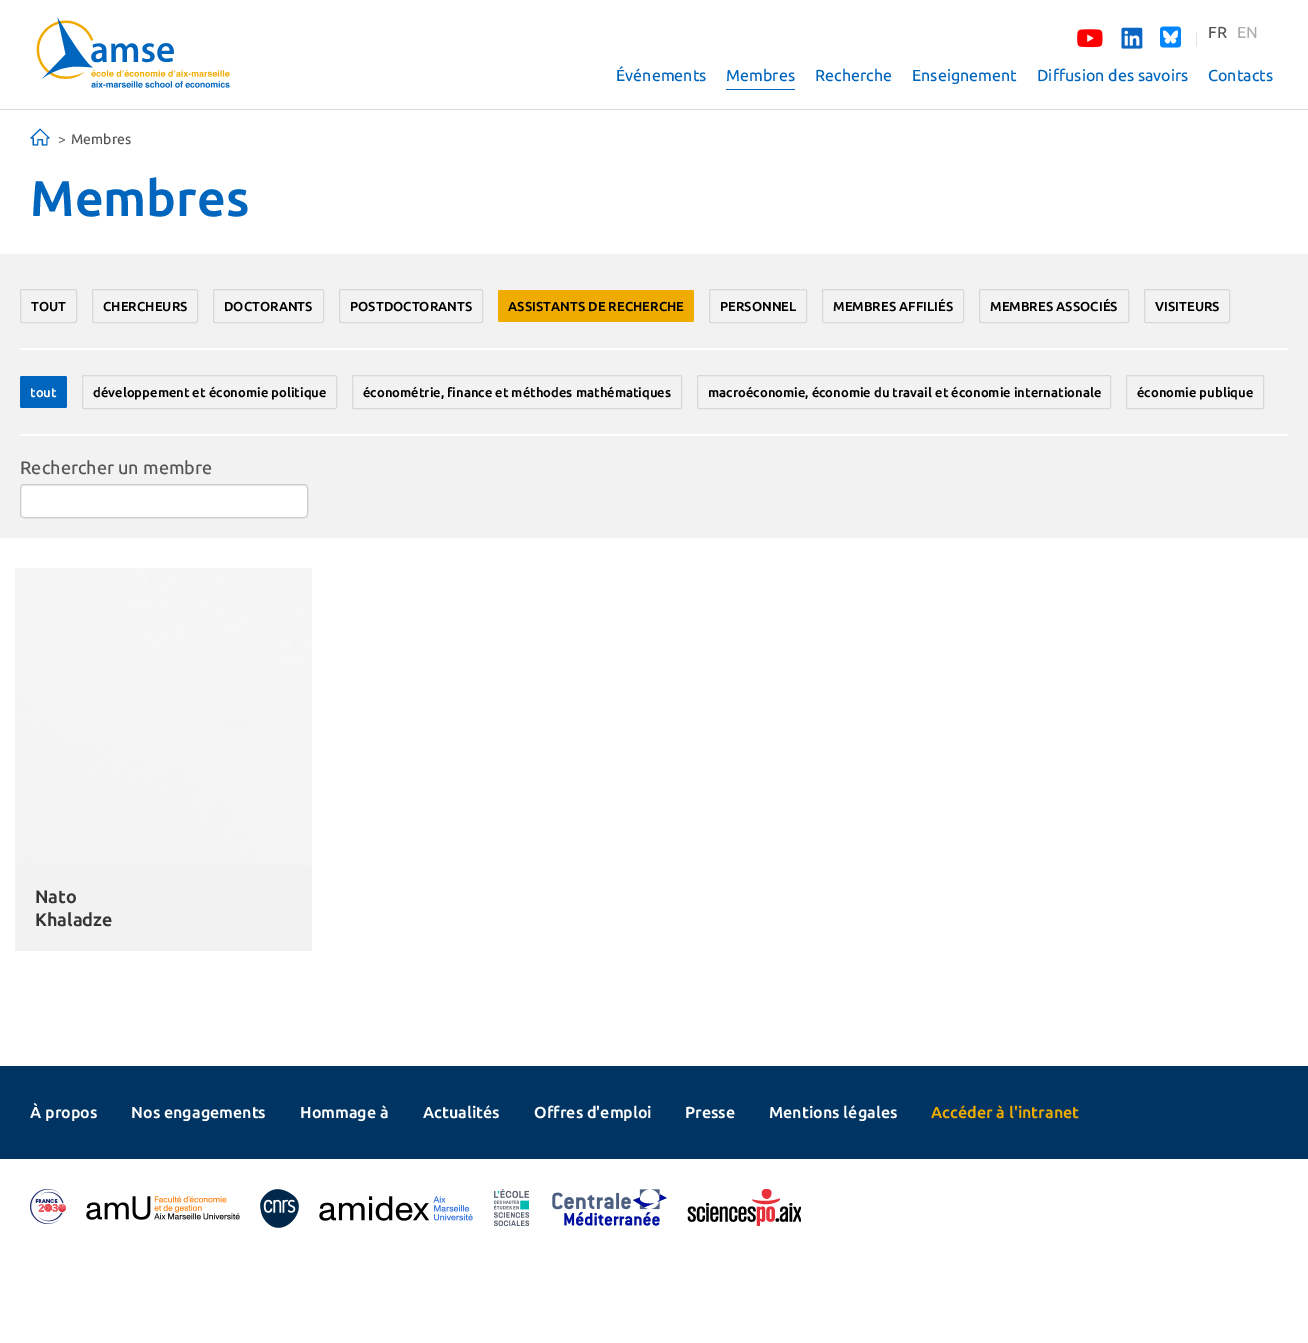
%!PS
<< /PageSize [1308 1343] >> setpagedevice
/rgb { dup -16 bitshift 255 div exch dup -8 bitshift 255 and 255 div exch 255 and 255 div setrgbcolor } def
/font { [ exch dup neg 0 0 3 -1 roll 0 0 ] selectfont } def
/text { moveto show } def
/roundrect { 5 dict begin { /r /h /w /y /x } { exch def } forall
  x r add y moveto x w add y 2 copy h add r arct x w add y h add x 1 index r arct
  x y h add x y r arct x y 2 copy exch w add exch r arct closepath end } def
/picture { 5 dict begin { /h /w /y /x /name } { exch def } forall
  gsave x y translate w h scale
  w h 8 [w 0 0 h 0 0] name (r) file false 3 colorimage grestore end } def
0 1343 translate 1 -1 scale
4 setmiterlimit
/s1 { /SourceSansPro-Regular 14 font 16#DADADA rgb } def
/s2 { /Ubuntu-Medium 16 font 16#545454 rgb } def
/s3 { /Ubuntu-Medium 16 font 16#ABABAB rgb } def
/s4 { /Ubuntu-Medium 16 font 16#0065BD rgb } def
/s5 { /Ubuntu-Regular 14 font 16#545454 rgb } def
/s6 { /Ubuntu-Medium 14 font 16#545454 rgb } def
/s7 { /Ubuntu-Bold 50 font 16#0065BD rgb } def
/s8 { /Ubuntu-Bold 13 font 16#000000 rgb } def
/s9 { /Ubuntu-Bold 13 font 16#FFFFFF rgb } def
/s10 { /Ubuntu-Medium 18 font 16#545454 rgb } def
/s11 { /Ubuntu-Bold 18 font 16#353535 rgb } def
/s12 { /Ubuntu-Bold 16 font 16#FFFFFF rgb } def
/s13 { /Ubuntu-Bold 16 font 16#F0AB00 rgb } def
16#FFFFFF rgb
0 0 1308 1343 rectfill
16#D8D8D8 rgb
0 109 1308 1 rectfill
(pic1.raw) 36 17 194 71 picture
(pic2.raw) 1077 29 26 19 picture
(pic3.raw) 1121 27 22 22 picture
(pic4.raw) 1160 26 21 22 picture
s1
(|) 1195 43 text
s2
(FR) 1208 38 text
s3
(EN) 1237 38 text
s4
(Événements) 616 81 text
726 89 69 1 rectfill
(Membres) 726 81 text
(Recherche) 815 81 text
(Enseignement) 912 81 text
(Diffusion des savoirs) 1037 81 text
(Contacts) 1208 81 text
(pic5.raw) 30 128 20 18 picture
s5
(>) 58 144 text
s6
(Membres) 71 144 text
s7
(Membres) 30 216 text
16#F2F2F2 rgb
0 254 1308 284 rectfill
16#D8D8D8 rgb
20.5 289.5 56 33 1.5 roundrect stroke
s8
(TOUT) 31 311 text
16#D8D8D8 rgb
92.5 289.5 105 33 1.5 roundrect stroke
s8
(CHERCHEURS) 103 311 text
16#D8D8D8 rgb
213.5 289.5 110 33 1.5 roundrect stroke
s8
(DOCTORANTS) 224 311 text
16#D8D8D8 rgb
339.5 289.5 143 33 1.5 roundrect stroke
s8
(POSTDOCTORANTS) 350 311 text
16#F0AB00 rgb
498 290 196 32 2 roundrect fill
s8
(ASSISTANTS DE RECHERCHE) 508 311 text
16#D8D8D8 rgb
709.5 289.5 97 33 1.5 roundrect stroke
s8
(PERSONNEL) 720 311 text
16#D8D8D8 rgb
822.5 289.5 141 33 1.5 roundrect stroke
s8
(MEMBRES AFFILIÉS) 833 311 text
16#D8D8D8 rgb
979.5 289.5 149 33 1.5 roundrect stroke
s8
(MEMBRES ASSOCIÉS) 990 311 text
16#D8D8D8 rgb
1144.5 289.5 85 33 1.5 roundrect stroke
s8
(VISITEURS) 1155 311 text
16#FFFFFF rgb
20 348 1268 2 rectfill
16#0065BD rgb
20 376 47 32 2 roundrect fill
s9
(tout) 30 397 text
16#D8D8D8 rgb
82.5 375.5 254 33 1.5 roundrect stroke
s8
(développement et économie politique) 93 397 text
16#D8D8D8 rgb
352.5 375.5 329 33 1.5 roundrect stroke
s8
(économétrie, finance et méthodes mathématiques) 363 397 text
16#D8D8D8 rgb
697.5 375.5 413 33 1.5 roundrect stroke
s8
(macroéconomie, économie du travail et économie internationale) 708 397 text
16#D8D8D8 rgb
1126.5 375.5 137 33 1.5 roundrect stroke
s8
(économie publique) 1137 397 text
16#FFFFFF rgb
20 434 1268 2 rectfill
s10
(Rechercher un membre) 20 474 text
16#FFFFFF rgb
20 484 288 34 4 roundrect fill
16#ECECEC rgb
24 486 moveto 304 486 lineto 306 486 307 487 307 489 curveto 307 487 306 485 304 485 curveto 24 485 lineto 22 485 21 487 21 489 curveto 21 487 22 486 24 486 curveto closepath fill
16#CCCCCC rgb
20.5 484.5 287 33 3.5 roundrect stroke
(pic6.raw) 15 568 297 297 picture
16#F2F2F2 rgb
15 865 297 86 rectfill
s11
(Nato) 35 903 text
(Khaladze) 35 926 text
16#003563 rgb
0 1066 1308 93 rectfill
s12
(À propos) 30 1118 text
(Nos engagements) 131 1118 text
(Hommage à) 300 1118 text
(Actualités) 423 1118 text
(Offres d'emploi) 534 1118 text
(Presse) 685 1118 text
(Mentions légales) 769 1118 text
s13
(Accéder à l'intranet) 931 1118 text
(pic7.raw) 30 1189 36 35 picture
(pic8.raw) 86 1196 154 24 picture
(pic9.raw) 260 1189 39 39 picture
(pic10.raw) 319 1196 154 25 picture
(pic11.raw) 494 1189 35 37 picture
(pic12.raw) 552 1189 115 37 picture
(pic13.raw) 687 1189 114 37 picture
showpage
